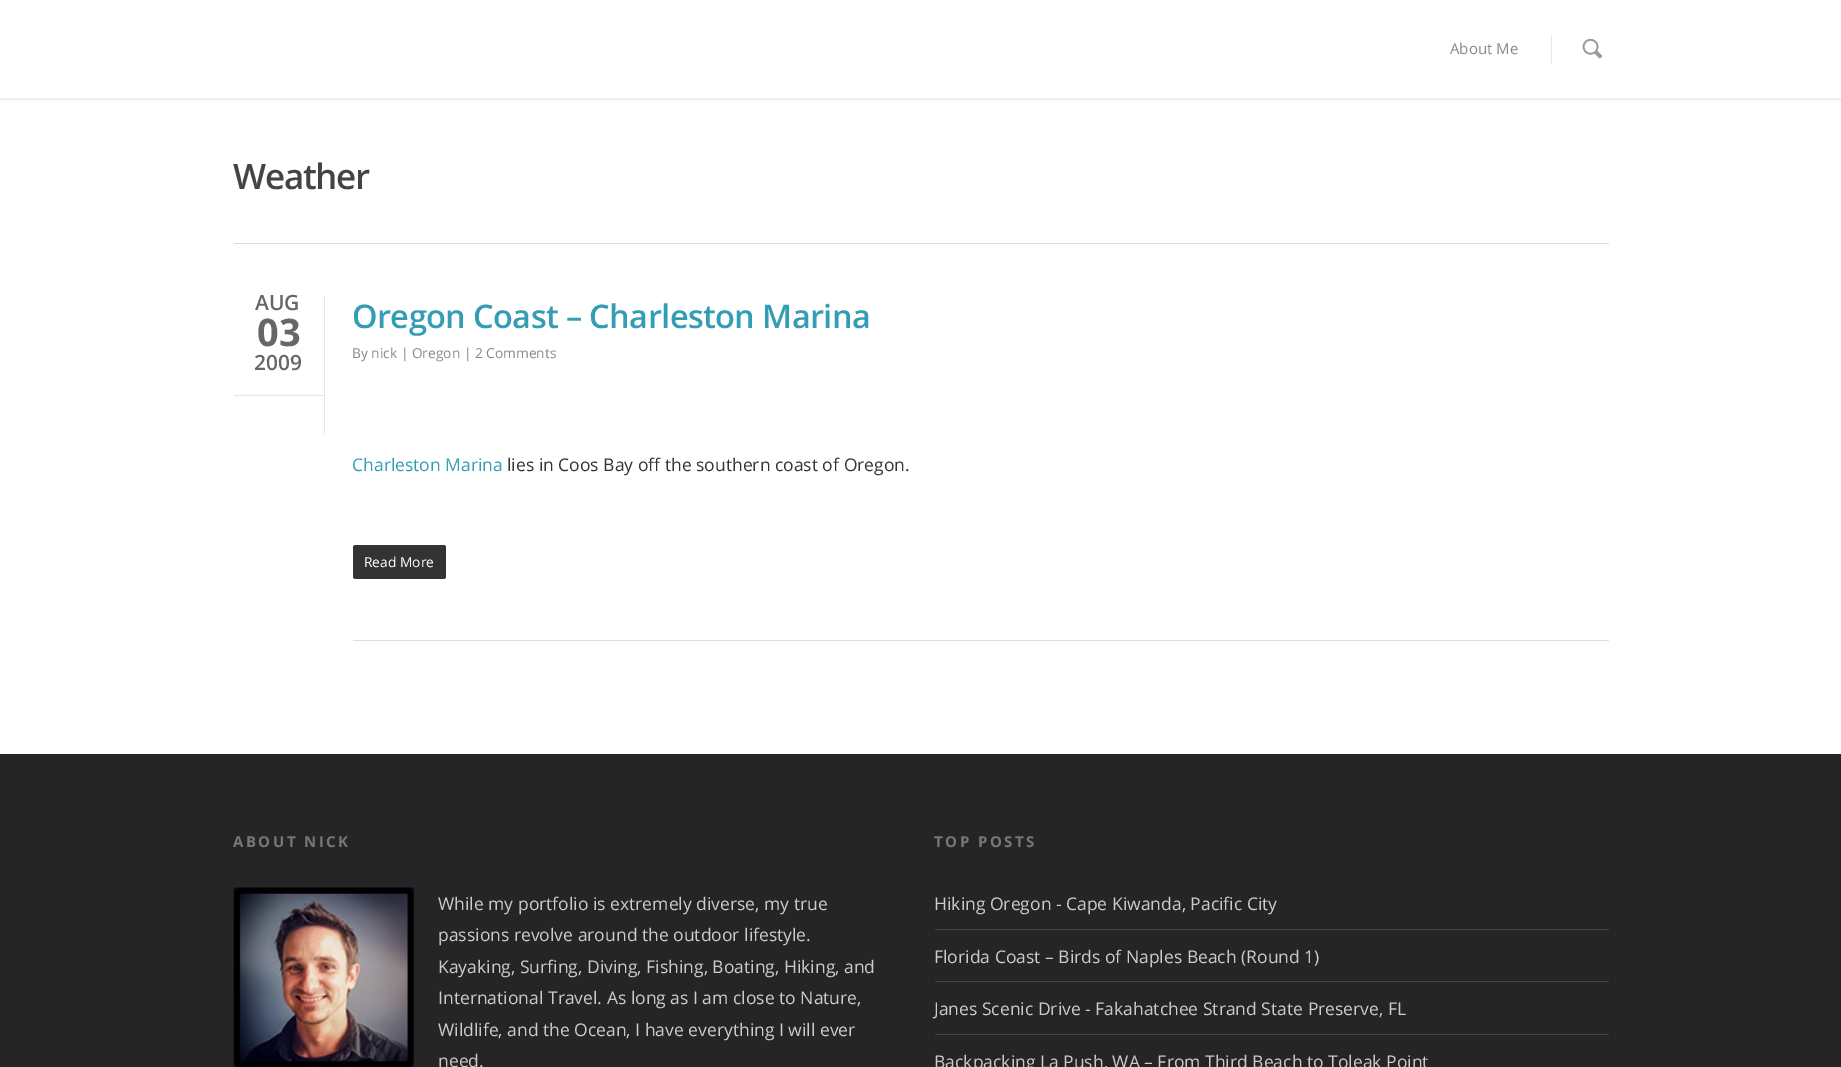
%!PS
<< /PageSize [1841 1067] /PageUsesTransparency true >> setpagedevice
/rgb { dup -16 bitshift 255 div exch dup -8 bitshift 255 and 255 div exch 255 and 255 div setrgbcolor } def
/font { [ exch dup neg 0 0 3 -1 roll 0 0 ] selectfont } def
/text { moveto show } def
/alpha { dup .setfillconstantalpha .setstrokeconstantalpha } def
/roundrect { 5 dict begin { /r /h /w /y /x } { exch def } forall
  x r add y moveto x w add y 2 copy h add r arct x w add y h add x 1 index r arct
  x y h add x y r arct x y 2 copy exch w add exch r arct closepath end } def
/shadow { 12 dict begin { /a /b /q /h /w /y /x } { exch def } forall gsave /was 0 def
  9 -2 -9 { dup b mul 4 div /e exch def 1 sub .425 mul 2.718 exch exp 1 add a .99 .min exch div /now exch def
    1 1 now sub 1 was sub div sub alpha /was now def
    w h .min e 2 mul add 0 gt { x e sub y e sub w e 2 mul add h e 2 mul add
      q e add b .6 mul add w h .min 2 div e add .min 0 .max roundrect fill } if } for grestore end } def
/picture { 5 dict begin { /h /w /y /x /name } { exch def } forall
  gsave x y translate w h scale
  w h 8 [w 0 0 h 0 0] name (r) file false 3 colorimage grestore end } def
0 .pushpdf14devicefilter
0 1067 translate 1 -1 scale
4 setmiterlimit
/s1 { /OpenSans-Regular 15 font 16#888888 rgb } def
/s2 { /OpenSans-SemiBold 21 font 16#676767 rgb } def
/s3 { /OpenSans-Bold 38 font 16#676767 rgb } def
/s4 { /OpenSans-Regular 13.75 font 16#888888 rgb } def
/s5 { /OpenSans-Regular 17.5 font 16#329DB5 rgb } def
/s6 { /OpenSans-Regular 17.5 font 16#333333 rgb } def
/s7 { /OpenSans-Regular 13.75 font 16#FFFFFF rgb } def
/s8 { /OpenSans-Regular 17.5 font 16#CCCCCC rgb } def
16#FFFFFF rgb
0 0 1841 1067 rectfill
16#000000 rgb
0 0 1841 98 0 2 0.22 shadow
16#FFFFFF rgb
0 0 1841 98 rectfill
s1
(About Me) 1450 54 text
16#E7E7E7 rgb
1551 36 1 27 rectfill
(pic1.raw) 1582 38 21 21 picture
16#DDDDDD rgb
234 243 1375 1 rectfill
/OpenSans-SemiBold 35 font
16#444444 rgb
233 189 moveto -1.25 0 (Weather) ashow
16#E6E6E6 rgb
324 296 1 139 rectfill
234 395 90 1 rectfill
s2
(AUG) 255 310 text
s3
(03) 257 346 text
s2
(2009) 254 370 text
16#DDDDDD rgb
353 640 1256 1 rectfill
/OpenSans-SemiBold 32.5 font
16#329DB5 rgb
352 328 moveto -0.6 0 (Oregon Coast – Charleston Marina) ashow
s4
(By nick | Oregon | 2 Comments) 352 358 text
s5
(Charleston Marina) 352 471 text
s6
(lies in Coos Bay off the southern coast of Oregon.) 507 471 text
353 545 93 34 2.5 roundrect fill
s7
(Read More) 364 567 text
16#252525 rgb
0 754 1841 313 rectfill
/OpenSans-Bold 15 font
16#777777 rgb
233 847 moveto 2.5 0 (ABOUT NICK) ashow
(pic2.raw) 233 887 181 180 picture
s8
(While my portfolio is extremely diverse, my true) 438 910 text
(passions revolve around the outdoor lifestyle.) 438 941 text
(Kayaking, Surfing, Diving, Fishing, Boating, Hiking, and) 438 973 text
(International Travel. As long as I am close to Nature,) 438 1004 text
(Wildlife, and the Ocean, I have everything I will ever) 438 1036 text
(need.) 438 1067 text
/OpenSans-Bold 15 font
16#777777 rgb
934 847 moveto 2.5 0 (TOP POSTS) ashow
16#444444 rgb
935 929 674 1 rectfill
s8
(Hiking Oregon - Cape Kiwanda, Pacific City) 934 910 text
16#444444 rgb
935 981 674 1 rectfill
s8
(Florida Coast – Birds of Naples Beach \(Round 1\)) 934 963 text
16#444444 rgb
935 1034 674 1 rectfill
s8
(Janes Scenic Drive - Fakahatchee Strand State Preserve, FL) 934 1015 text
(Backpacking La Push, WA – From Third Beach to Toleak Point) 934 1068 text
.poppdf14devicefilter showpage
